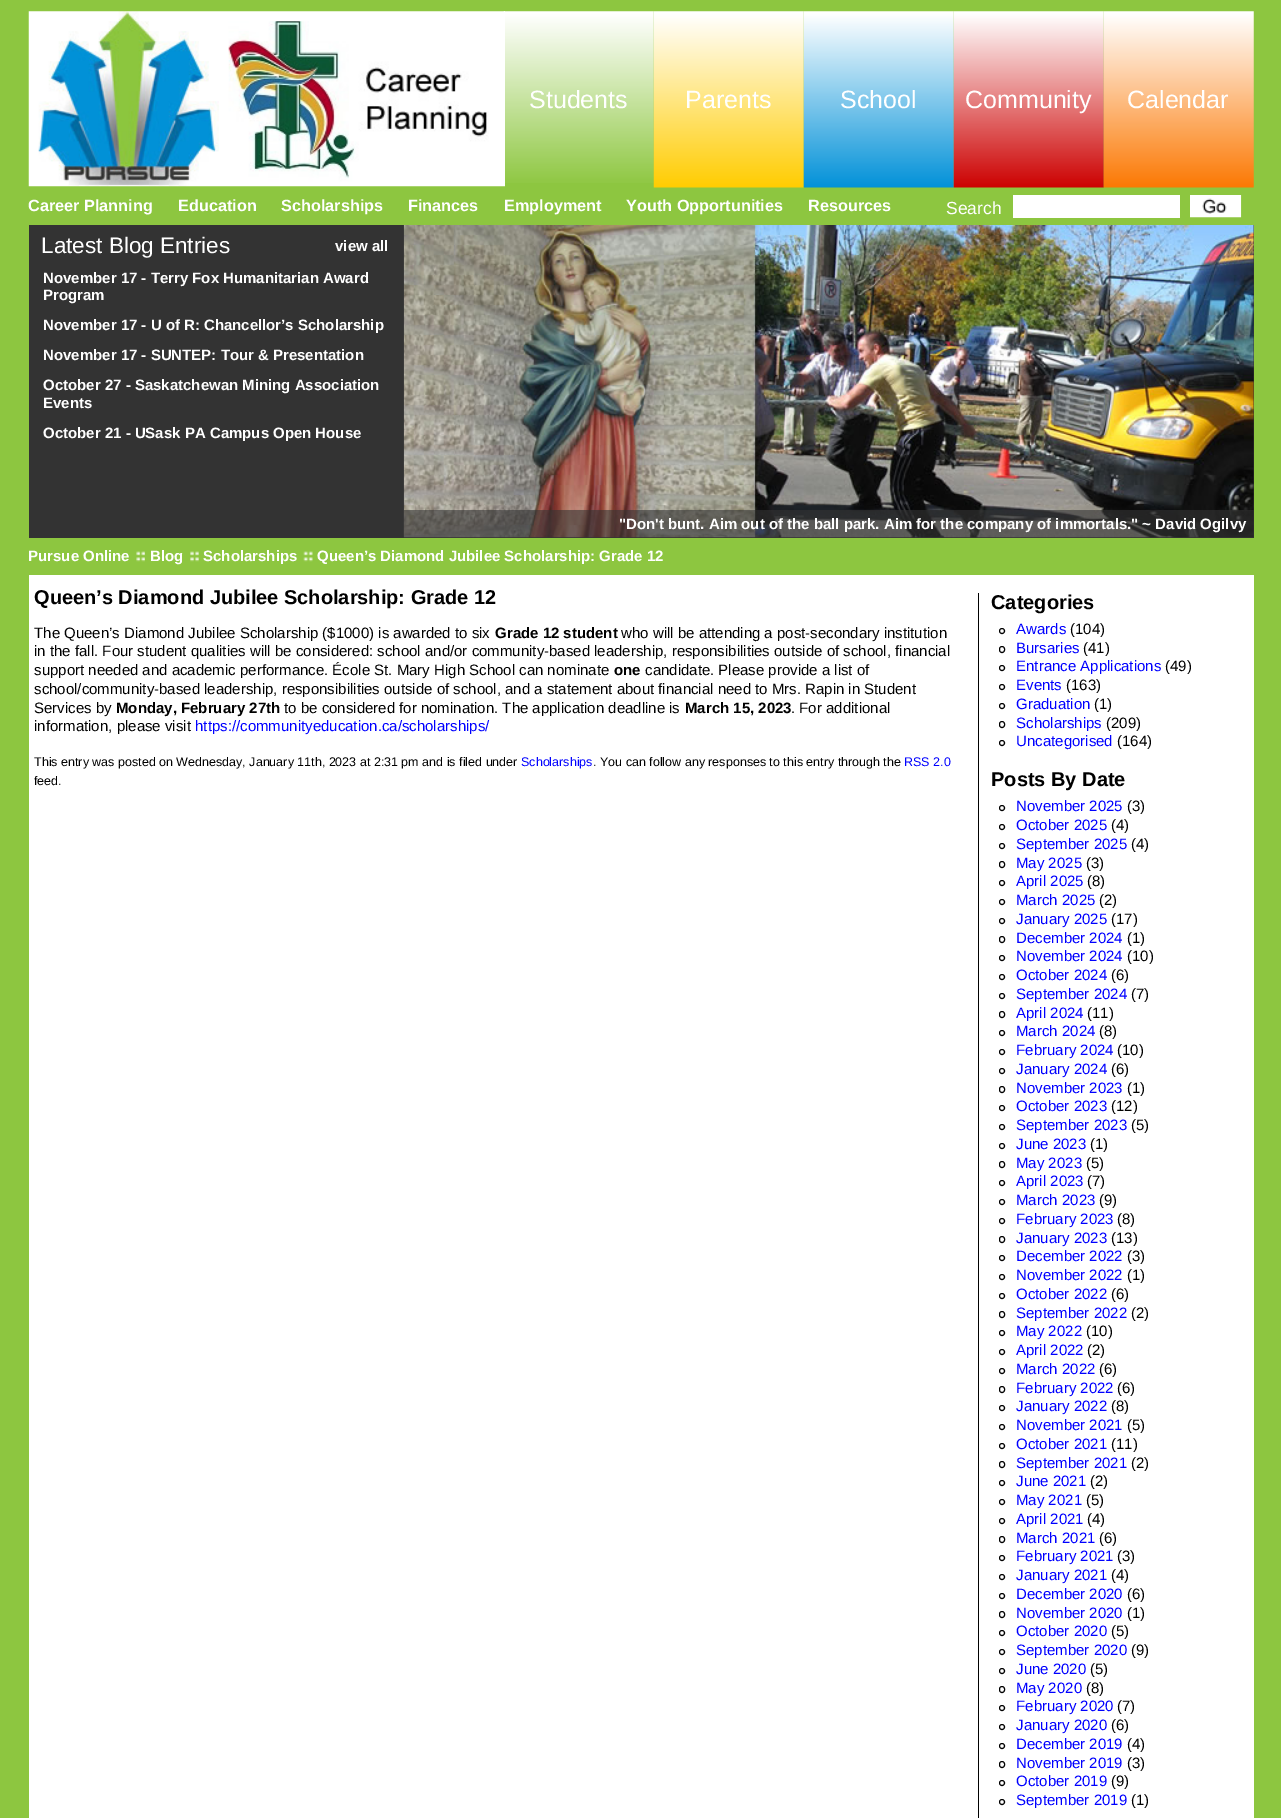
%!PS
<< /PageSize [1281 1818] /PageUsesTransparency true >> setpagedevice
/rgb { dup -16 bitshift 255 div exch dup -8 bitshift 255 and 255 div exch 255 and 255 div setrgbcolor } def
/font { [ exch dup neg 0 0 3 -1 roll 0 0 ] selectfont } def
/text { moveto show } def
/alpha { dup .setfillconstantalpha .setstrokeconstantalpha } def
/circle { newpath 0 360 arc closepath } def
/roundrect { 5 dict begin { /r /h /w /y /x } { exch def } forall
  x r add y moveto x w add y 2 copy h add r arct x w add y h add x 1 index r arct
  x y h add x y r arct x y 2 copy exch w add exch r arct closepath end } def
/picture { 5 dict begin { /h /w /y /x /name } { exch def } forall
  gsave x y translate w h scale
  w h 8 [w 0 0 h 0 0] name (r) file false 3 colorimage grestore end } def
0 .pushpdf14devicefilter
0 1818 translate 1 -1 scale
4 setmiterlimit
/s1 { /LiberationSans-Regular 25 font 16#FFFFFF rgb } def
/s2 { /LiberationSans-Bold 16.25 font 16#FFFFFF rgb } def
/s3 { /LiberationSans-Regular 17.5 font 16#FFFFFF rgb } def
/s4 { /LiberationSans-Regular 22.5 font 16#FFFFFF rgb } def
/s5 { /LiberationSans-Bold 15 font 16#FFFFFF rgb } def
/s6 { /LiberationSans-Bold 20 font 16#000000 rgb } def
/s7 { /LiberationSans-Regular 15 font 16#000000 rgb } def
/s8 { /LiberationSans-Bold 15 font 16#000000 rgb } def
/s9 { /LiberationSans-Regular 15 font 16#0000FF rgb } def
/s10 { /LiberationSans-Regular 12.5 font 16#000000 rgb } def
/s11 { /LiberationSans-Regular 12.5 font 16#0000FF rgb } def
16#8DC640 rgb
0 0 1281 1818 rectfill
(pic2.raw) 503 11 151 172 picture
(pic1.raw) 28 11 477 176 picture
s1
(Students) 529 108 text
(pic3.raw) 653 11 151 177 picture
(Parents) 685 108 text
(pic4.raw) 803 11 151 177 picture
(School) 840 108 text
(pic5.raw) 953 11 151 177 picture
(Community) 965 108 text
(pic6.raw) 1103 11 151 177 picture
(Calendar) 1127 108 text
s2
(Career Planning) 28 211 text
(Education) 178 211 text
(Scholarships) 281 211 text
(Finances) 408 211 text
(Employment) 504 211 text
(Youth Opportunities) 626 211 text
(Resources) 808 211 text
s3
(Search) 946 214 text
1013 195 167 23 rectfill
(pic7.raw) 1190 195 52 23 picture
16#333333 rgb
29 225 1225 313 rectfill
s4
(Latest Blog Entries) 41 253 text
s5
(view all) 335 251 text
(November 17 - Terry Fox Humanitarian Award) 43 283 text
(Program) 43 300 text
(November 17 - U of R: Chancellor’s Scholarship) 43 330 text
(November 17 - SUNTEP: Tour & Presentation) 43 360 text
(October 27 - Saskatchewan Mining Association) 43 390 text
(Events) 43 408 text
(October 21 - USask PA Campus Open House) 43 438 text
(pic8.raw) 403 225 851 313 picture
0.6 alpha
16#343434 rgb
404 510 850 28 rectfill
1 alpha
s5
("Don't bunt. Aim out of the ball park. Aim for the company of immortals." ~ David Ogilvy) 619 529 text
(Pursue Online) 28 561 text
(pic9.raw) 136 551 9 11 picture
(Blog) 150 561 text
(pic10.raw) 190 551 9 11 picture
(Scholarships) 203 561 text
(pic11.raw) 303 551 10 11 picture
(Queen’s Diamond Jubilee Scholarship: Grade 12) 317 561 text
29 575 1225 1243 rectfill
s6
(Queen’s Diamond Jubilee Scholarship: Grade 12) 34 604 text
s7
(The Queen’s Diamond Jubilee Scholarship \($1000\) is awarded to six) 34 638 text
s8
(Grade 12 student) 495 638 text
s7
(who will be attending a post-secondary institution) 621 638 text
(in the fall. Four student qualities will be considered: school and/or community-based leadership, responsibilities outside of school, financial) 34 656 text
(support needed and academic performance. École St. Mary High School can nominate) 34 675 text
s8
(one) 614 675 text
s7
(candidate. Please provide a list of) 645 675 text
(school/community-based leadership, responsibilities outside of school, and a statement about financial need to Mrs. Rapin in Student) 34 694 text
(Services by) 34 713 text
s8
(Monday, February 27th) 116 713 text
s7
(to be considered for nomination. The application deadline is) 284 713 text
s8
(March 15, 2023) 685 713 text
s7
(. For additional) 791 713 text
(information, please visit) 34 731 text
s9
(https://communityeducation.ca/scholarships/) 195 731 text
s10
(This entry was posted on Wednesday, January 11th, 2023 at 2:31 pm and is filed under) 34 766 text
s11
(Scholarships) 521 766 text
s10
(. You can follow any responses to this entry through the) 593 766 text
s11
(RSS 2.0) 904 766 text
s10
(feed.) 34 785 text
978 593 1 1225 rectfill
s6
(Categories) 991 609 text
1002 631 2.5 circle stroke
s9
(Awards) 1016 634 text
s7
(\(104\)) 1070 634 text
999.5 646.5 5 6 2.5 roundrect stroke
s9
(Bursaries) 1016 653 text
s7
(\(41\)) 1083 653 text
1002 668 2.5 circle stroke
s9
(Entrance Applications) 1016 671 text
s7
(\(49\)) 1165 671 text
1002 687 2.5 circle stroke
s9
(Events) 1016 690 text
s7
(\(163\)) 1066 690 text
1002 706 2.5 circle stroke
s9
(Graduation) 1016 709 text
s7
(\(1\)) 1094 709 text
999.5 721.5 5 6 2.5 roundrect stroke
s9
(Scholarships) 1016 728 text
s7
(\(209\)) 1106 728 text
1002 743 2.5 circle stroke
s9
(Uncategorised) 1016 746 text
s7
(\(164\)) 1117 746 text
s6
(Posts By Date) 991 786 text
1002 808 2.5 circle stroke
s9
(November 2025) 1016 811 text
s7
(\(3\)) 1127 811 text
1002 827 2.5 circle stroke
s9
(October 2025) 1016 830 text
s7
(\(4\)) 1111 830 text
1002 846 2.5 circle stroke
s9
(September 2025) 1016 849 text
s7
(\(4\)) 1131 849 text
999.5 861.5 5 6 2.5 roundrect stroke
s9
(May 2025) 1016 868 text
s7
(\(3\)) 1086 868 text
1002 883 2.5 circle stroke
s9
(April 2025) 1016 886 text
s7
(\(8\)) 1087 886 text
1002 902 2.5 circle stroke
s9
(March 2025) 1016 905 text
s7
(\(2\)) 1099 905 text
1002 921 2.5 circle stroke
s9
(January 2025) 1016 924 text
s7
(\(17\)) 1111 924 text
999.5 936.5 5 6 2.5 roundrect stroke
s9
(December 2024) 1016 943 text
s7
(\(1\)) 1127 943 text
1002 958 2.5 circle stroke
s9
(November 2024) 1016 961 text
s7
(\(10\)) 1127 961 text
1002 977 2.5 circle stroke
s9
(October 2024) 1016 980 text
s7
(\(6\)) 1111 980 text
1002 996 2.5 circle stroke
s9
(September 2024) 1016 999 text
s7
(\(7\)) 1131 999 text
999.5 1011.5 5 6 2.5 roundrect stroke
s9
(April 2024) 1016 1018 text
s7
(\(11\)) 1087 1018 text
1002 1033 2.5 circle stroke
s9
(March 2024) 1016 1036 text
s7
(\(8\)) 1099 1036 text
1002 1052 2.5 circle stroke
s9
(February 2024) 1016 1055 text
s7
(\(10\)) 1117 1055 text
1002 1071 2.5 circle stroke
s9
(January 2024) 1016 1074 text
s7
(\(6\)) 1111 1074 text
999.5 1086.5 5 6 2.5 roundrect stroke
s9
(November 2023) 1016 1093 text
s7
(\(1\)) 1127 1093 text
1002 1108 2.5 circle stroke
s9
(October 2023) 1016 1111 text
s7
(\(12\)) 1111 1111 text
1002 1127 2.5 circle stroke
s9
(September 2023) 1016 1130 text
s7
(\(5\)) 1131 1130 text
1002 1146 2.5 circle stroke
s9
(June 2023) 1016 1149 text
s7
(\(1\)) 1090 1149 text
999.5 1161.5 5 6 2.5 roundrect stroke
s9
(May 2023) 1016 1168 text
s7
(\(5\)) 1086 1168 text
1002 1183 2.5 circle stroke
s9
(April 2023) 1016 1186 text
s7
(\(7\)) 1087 1186 text
1002 1202 2.5 circle stroke
s9
(March 2023) 1016 1205 text
s7
(\(9\)) 1099 1205 text
1002 1221 2.5 circle stroke
s9
(February 2023) 1016 1224 text
s7
(\(8\)) 1117 1224 text
999.5 1236.5 5 6 2.5 roundrect stroke
s9
(January 2023) 1016 1243 text
s7
(\(13\)) 1111 1243 text
1002 1258 2.5 circle stroke
s9
(December 2022) 1016 1261 text
s7
(\(3\)) 1127 1261 text
1002 1277 2.5 circle stroke
s9
(November 2022) 1016 1280 text
s7
(\(1\)) 1127 1280 text
1002 1296 2.5 circle stroke
s9
(October 2022) 1016 1299 text
s7
(\(6\)) 1111 1299 text
999.5 1311.5 5 6 2.5 roundrect stroke
s9
(September 2022) 1016 1318 text
s7
(\(2\)) 1131 1318 text
1002 1333 2.5 circle stroke
s9
(May 2022) 1016 1336 text
s7
(\(10\)) 1086 1336 text
1002 1352 2.5 circle stroke
s9
(April 2022) 1016 1355 text
s7
(\(2\)) 1087 1355 text
1002 1371 2.5 circle stroke
s9
(March 2022) 1016 1374 text
s7
(\(6\)) 1099 1374 text
999.5 1386.5 5 6 2.5 roundrect stroke
s9
(February 2022) 1016 1393 text
s7
(\(6\)) 1117 1393 text
1002 1408 2.5 circle stroke
s9
(January 2022) 1016 1411 text
s7
(\(8\)) 1111 1411 text
1002 1427 2.5 circle stroke
s9
(November 2021) 1016 1430 text
s7
(\(5\)) 1127 1430 text
1002 1446 2.5 circle stroke
s9
(October 2021) 1016 1449 text
s7
(\(11\)) 1111 1449 text
999.5 1461.5 5 6 2.5 roundrect stroke
s9
(September 2021) 1016 1468 text
s7
(\(2\)) 1131 1468 text
1002 1483 2.5 circle stroke
s9
(June 2021) 1016 1486 text
s7
(\(2\)) 1090 1486 text
1002 1502 2.5 circle stroke
s9
(May 2021) 1016 1505 text
s7
(\(5\)) 1086 1505 text
1002 1521 2.5 circle stroke
s9
(April 2021) 1016 1524 text
s7
(\(4\)) 1087 1524 text
999.5 1536.5 5 6 2.5 roundrect stroke
s9
(March 2021) 1016 1543 text
s7
(\(6\)) 1099 1543 text
1002 1558 2.5 circle stroke
s9
(February 2021) 1016 1561 text
s7
(\(3\)) 1117 1561 text
1002 1577 2.5 circle stroke
s9
(January 2021) 1016 1580 text
s7
(\(4\)) 1111 1580 text
1002 1596 2.5 circle stroke
s9
(December 2020) 1016 1599 text
s7
(\(6\)) 1127 1599 text
999.5 1611.5 5 6 2.5 roundrect stroke
s9
(November 2020) 1016 1618 text
s7
(\(1\)) 1127 1618 text
1002 1633 2.5 circle stroke
s9
(October 2020) 1016 1636 text
s7
(\(5\)) 1111 1636 text
1002 1652 2.5 circle stroke
s9
(September 2020) 1016 1655 text
s7
(\(9\)) 1131 1655 text
1002 1671 2.5 circle stroke
s9
(June 2020) 1016 1674 text
s7
(\(5\)) 1090 1674 text
999.5 1686.5 5 6 2.5 roundrect stroke
s9
(May 2020) 1016 1693 text
s7
(\(8\)) 1086 1693 text
1002 1708 2.5 circle stroke
s9
(February 2020) 1016 1711 text
s7
(\(7\)) 1117 1711 text
1002 1727 2.5 circle stroke
s9
(January 2020) 1016 1730 text
s7
(\(6\)) 1111 1730 text
1002 1746 2.5 circle stroke
s9
(December 2019) 1016 1749 text
s7
(\(4\)) 1127 1749 text
999.5 1761.5 5 6 2.5 roundrect stroke
s9
(November 2019) 1016 1768 text
s7
(\(3\)) 1127 1768 text
1002 1783 2.5 circle stroke
s9
(October 2019) 1016 1786 text
s7
(\(9\)) 1111 1786 text
1002 1802 2.5 circle stroke
s9
(September 2019) 1016 1805 text
s7
(\(1\)) 1131 1805 text
.poppdf14devicefilter showpage
